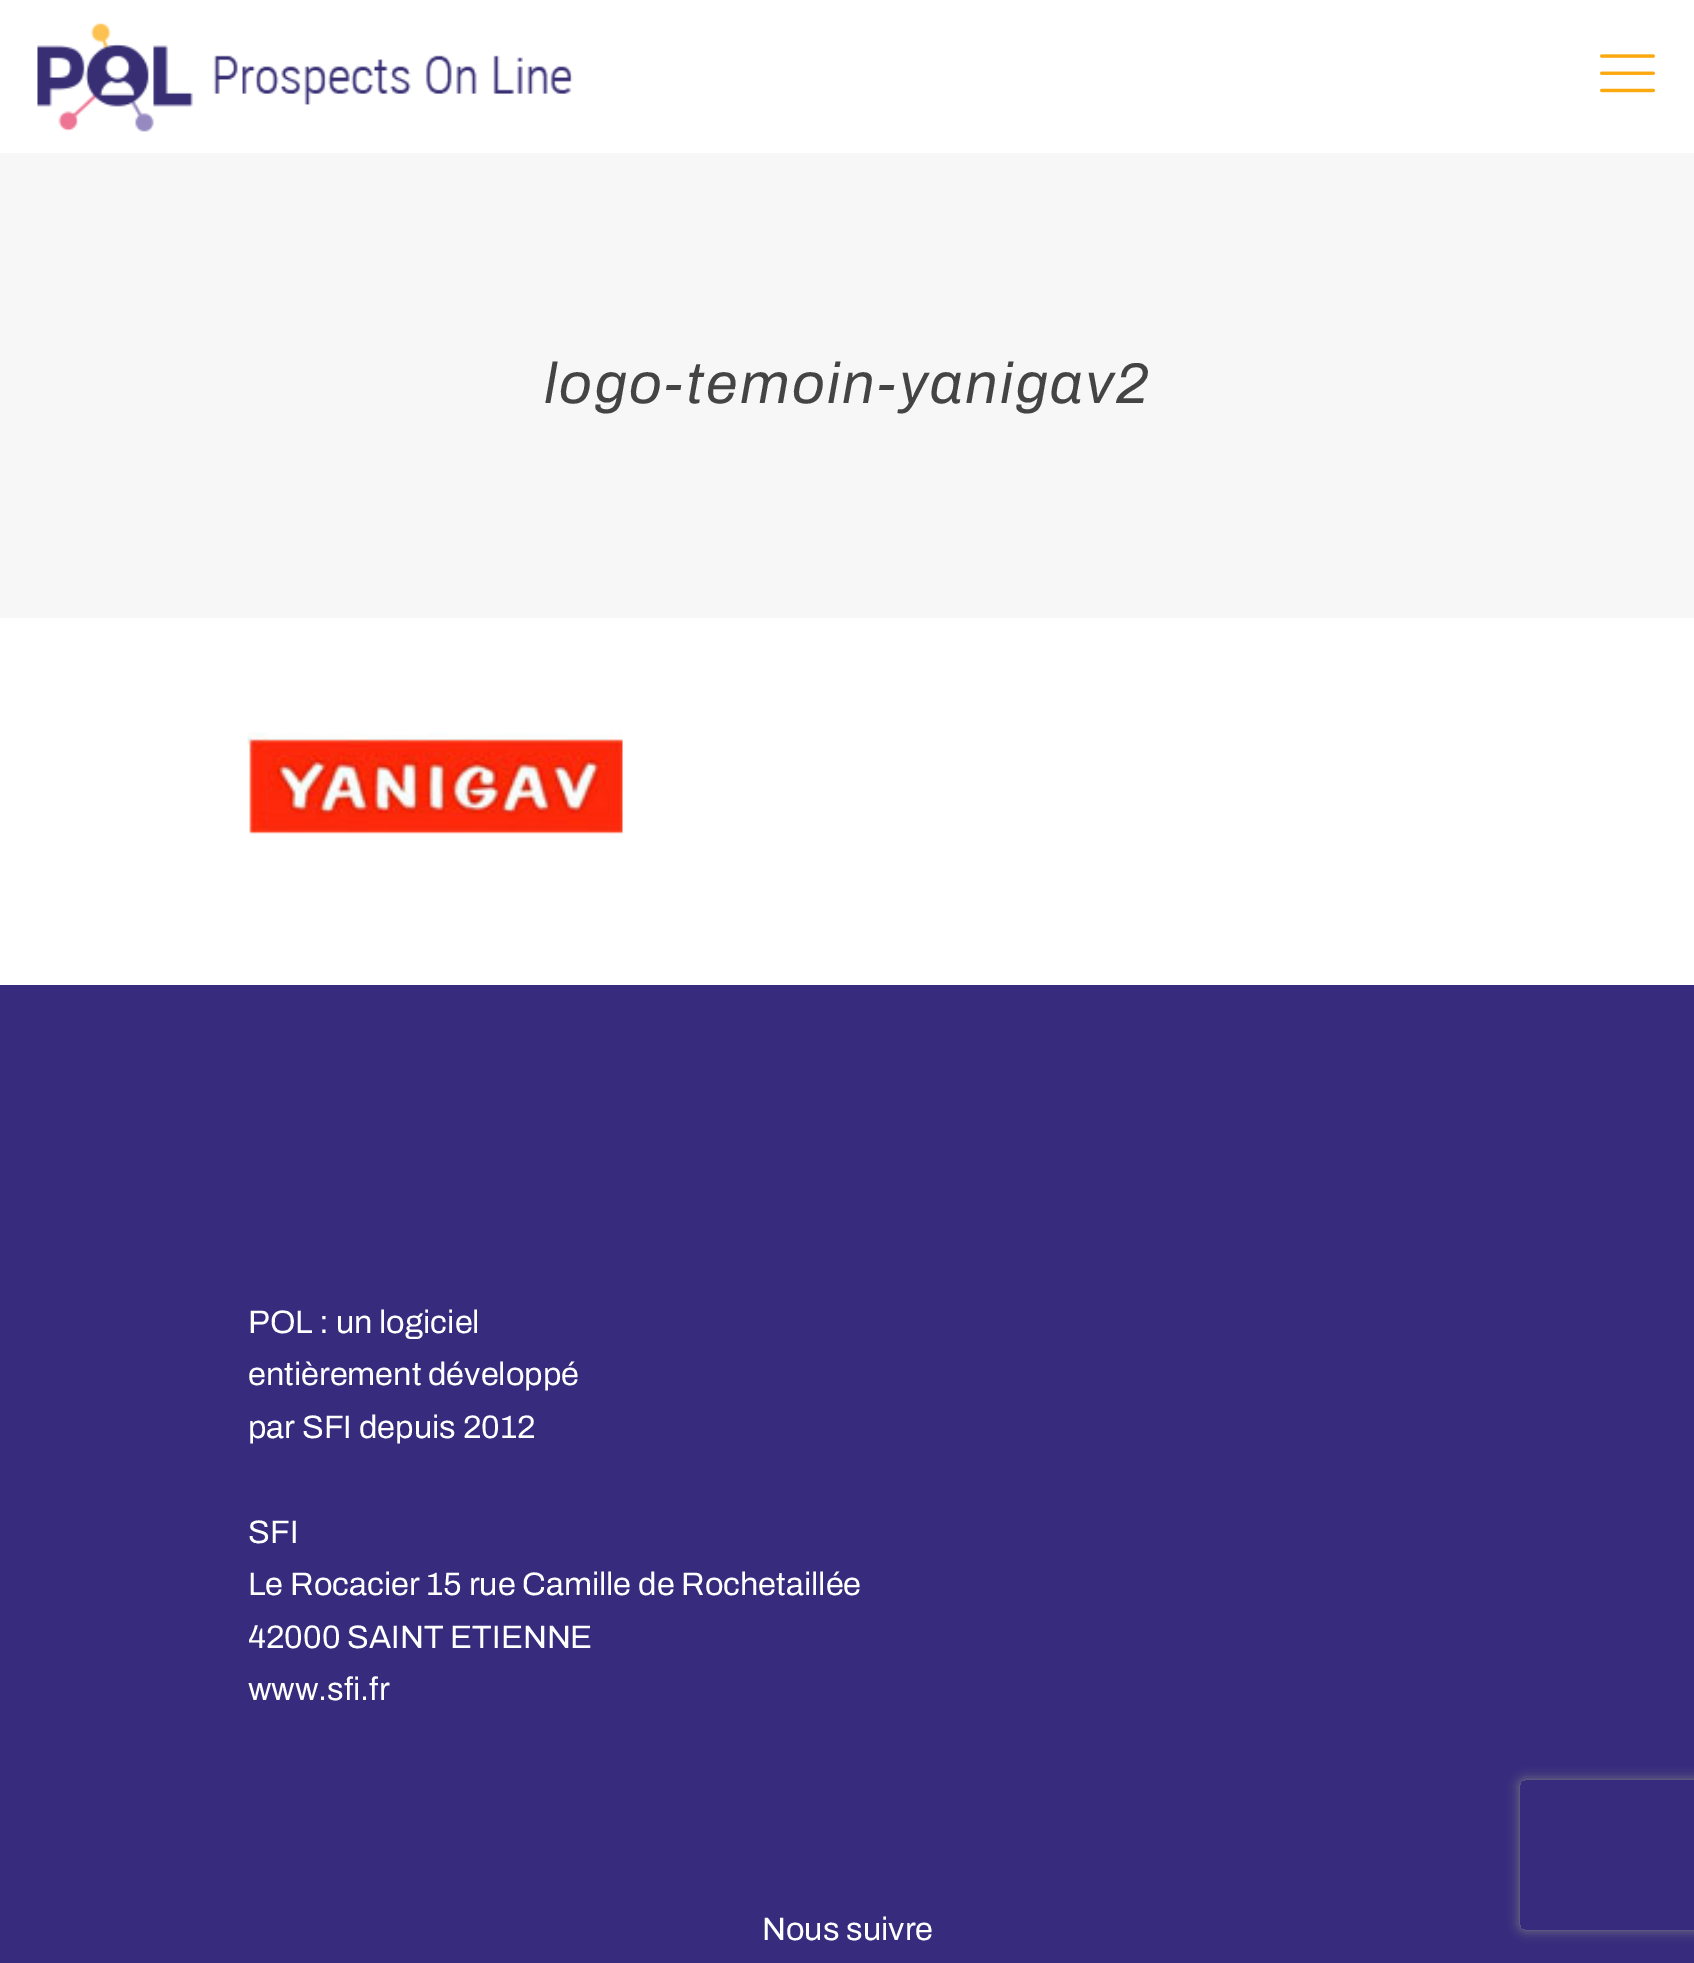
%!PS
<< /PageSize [1694 1963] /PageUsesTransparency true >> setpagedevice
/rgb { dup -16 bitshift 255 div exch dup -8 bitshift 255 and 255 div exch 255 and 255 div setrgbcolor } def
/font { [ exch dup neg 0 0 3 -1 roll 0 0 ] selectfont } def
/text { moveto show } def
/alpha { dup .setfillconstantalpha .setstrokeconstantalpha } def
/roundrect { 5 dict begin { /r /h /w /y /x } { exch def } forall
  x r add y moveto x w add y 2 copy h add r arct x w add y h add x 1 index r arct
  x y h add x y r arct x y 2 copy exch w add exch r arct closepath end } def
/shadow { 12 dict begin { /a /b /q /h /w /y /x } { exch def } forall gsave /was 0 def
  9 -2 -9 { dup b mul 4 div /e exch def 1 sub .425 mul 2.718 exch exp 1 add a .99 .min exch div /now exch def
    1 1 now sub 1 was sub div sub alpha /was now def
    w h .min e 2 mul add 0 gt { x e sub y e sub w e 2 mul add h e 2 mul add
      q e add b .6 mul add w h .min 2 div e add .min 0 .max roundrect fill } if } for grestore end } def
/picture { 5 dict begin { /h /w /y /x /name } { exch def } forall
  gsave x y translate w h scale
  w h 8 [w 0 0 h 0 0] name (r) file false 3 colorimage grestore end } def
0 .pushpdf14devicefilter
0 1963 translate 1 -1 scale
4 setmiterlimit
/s1 { /Archivo-Regular 32.5 font 16#FFFFFF rgb } def
16#FFFFFF rgb
0 0 1694 1963 rectfill
(pic1.raw) 37 23 536 109 picture
(pic2.raw) 1600 54 55 39 picture
16#F7F7F7 rgb
0 153 1694 465 rectfill
/Archivo-Italic 57.5 font
16#444444 rgb
544 403 moveto 2.5 0 (logo-temoin-yanigav2) ashow
(pic3.raw) 247 732 376 102 picture
16#372B7D rgb
0 985 1694 978 rectfill
s1
(POL : un logiciel) 248 1333 text
(entièrement développé) 248 1385 text
(par SFI depuis 2012) 248 1438 text
(SFI) 248 1543 text
(Le Rocacier 15 rue Camille de Rochetaillée) 248 1595 text
(42000 SAINT ETIENNE) 248 1648 text
(www.sfi.fr) 248 1700 text
(Nous suivre) 762 1940 text
gsave
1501 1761 moveto 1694 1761 lineto 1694 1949 lineto 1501 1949 lineto closepath 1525 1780 moveto 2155 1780 lineto 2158 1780 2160 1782 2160 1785 curveto 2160 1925 lineto 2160 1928 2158 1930 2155 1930 curveto 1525 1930 lineto 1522 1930 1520 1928 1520 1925 curveto 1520 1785 lineto 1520 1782 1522 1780 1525 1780 curveto closepath eoclip newpath
16#808080 rgb
1520 1780 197 150 5 6 1 shadow
grestore
.poppdf14devicefilter showpage
